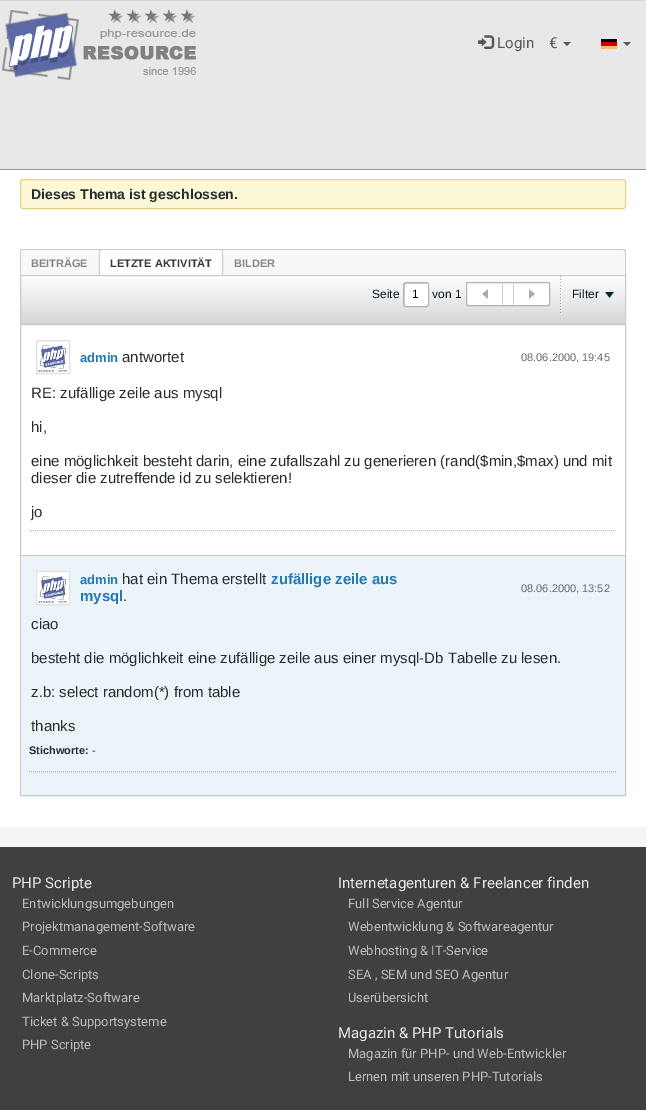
%!PS
<< /PageSize [646 1110] >> setpagedevice
/rgb { dup -16 bitshift 255 div exch dup -8 bitshift 255 and 255 div exch 255 and 255 div setrgbcolor } def
/font { [ exch dup neg 0 0 3 -1 roll 0 0 ] selectfont } def
/text { moveto show } def
/roundrect { 5 dict begin { /r /h /w /y /x } { exch def } forall
  x r add y moveto x w add y 2 copy h add r arct x w add y h add x 1 index r arct
  x y h add x y r arct x y 2 copy exch w add exch r arct closepath end } def
/picture { 5 dict begin { /h /w /y /x /name } { exch def } forall
  gsave x y translate w h scale
  w h 8 [w 0 0 h 0 0] name (r) file false 3 colorimage grestore end } def
0 1110 translate 1 -1 scale
4 setmiterlimit
/s1 { /Roboto-Regular 15 font 16#585858 rgb } def
/s2 { /LiberationSans-Bold 14 font 16#252C2F rgb } def
/s3 { /LiberationSans-Bold 11 font 16#838789 rgb } def
/s4 { /LiberationSans-Bold 11 font 16#343A3D rgb } def
/s5 { /LiberationSans-Regular 12 font 16#09161B rgb } def
/s6 { /LiberationSans-Regular 12 font 16#000000 rgb } def
/s7 { /LiberationSans-Bold 13 font 16#2379B5 rgb } def
/s8 { /LiberationSans-Regular 15 font 16#252C2F rgb } def
/s9 { /LiberationSans-Regular 11 font 16#656A6D rgb } def
/s10 { /LiberationSans-Bold 15 font 16#2379B5 rgb } def
/s11 { /LiberationSans-Bold 11 font 16#252C2F rgb } def
/s12 { /LiberationSans-Regular 11 font 16#252C2F rgb } def
/s13 { /Roboto-Regular 15 font 16#E8E8E8 rgb } def
/s14 { /Roboto-Regular 13 font 16#C1BCBC rgb } def
16#F5F5F5 rgb
0 0 646 1110 rectfill
16#E8E8E8 rgb
0 2 646 167 rectfill
16#989898 rgb
0 169 646 1 rectfill
16#EAEAEA rgb
0 1 646 1 rectfill
16#D7D7D7 rgb
0 0 646 1 rectfill
(pic1.raw) 2 9 194 71 picture
(pic2.raw) 478 35 17 14 picture
s1
(Login) 497 48 text
(€) 549 48 text
563 42 moveto 571 42 lineto 567 46 lineto closepath fill
(pic3.raw) 601 39 16 10 picture
623 42 moveto 631 42 lineto 627 46 lineto closepath fill
16#FFFFFF rgb
0 170 646 657 rectfill
16#FCF7D7 rgb
20.5 179.5 605 29 2.5 roundrect gsave fill grestore
16#E1D47E rgb
stroke
s2
(Dieses Thema ist geschlossen.) 31 199 text
16#F8F8F8 rgb
23 249 moveto 623 249 lineto 624.5 249 626 250.5 626 252 curveto 626 276 lineto 20 276 lineto 20 252 lineto 20 250.5 21.5 249 23 249 curveto closepath fill
16#C9CED2 rgb
23 249 moveto 623 249 lineto 625 249 626 250 626 252 curveto 626 276 lineto 20 276 lineto 20 252 lineto 20 250 21 249 23 249 curveto closepath 23 250 moveto 623 250 lineto 624 250 625 251 625 252 curveto 625 276 lineto 21 276 lineto 21 252 lineto 21 251 22 250 23 250 curveto closepath eofill
16#F8F8F8 rgb
24 250 moveto 283 250 lineto 284.5 250 286 251.5 286 253 curveto 286 276 lineto 24 276 lineto 22.5 276 21 274.5 21 273 curveto 21 253 lineto 21 251.5 22.5 250 24 250 curveto closepath fill
s3
(BEITRÄGE) 31 267 text
gsave
23 250 moveto 623 250 lineto 624 250 625 251 625 252 curveto 625 276 lineto 21 276 lineto 21 252 lineto 21 251 22 250 23 250 curveto closepath clip newpath
16#FFFFFF rgb
102 249 moveto 220 249 lineto 221.5 249 223 250.5 223 252 curveto 223 276 lineto 99 276 lineto 99 252 lineto 99 250.5 100.5 249 102 249 curveto closepath fill
grestore
16#C9CED2 rgb
102 250 moveto 100 250 lineto 98 252 99 272 99 276 curveto 100 276 lineto 100 252 lineto 100 251 101 250 102 250 curveto closepath 220 250 moveto 221 250 222 251 222 252 curveto 222 276 lineto 223 276 lineto 223 272 224 252 222 250 curveto closepath eofill
s4
(LETZTE AKTIVITÄT) 110 267 text
s3
(BILDER) 234 267 text
gsave 21 278 moveto 625 278 lineto 625 323 lineto 21 323 lineto closepath clip newpath
<< /ShadingType 2 /ColorSpace /DeviceRGB /Coords [323 276 323 323] /Extend [true true] /Function << /FunctionType 2 /Domain [0 1] /C0 [0.996 0.996 1] /C1 [0.835 0.847 0.855] /N 1 >> >> shfill grestore
16#C9CED2 rgb
20.5 275.5 605 48 rectstroke
s5
(Seite) 372 298 text
16#FFFFFF rgb
403 282 26 25 3 roundrect fill
16#D5D5D5 rgb
407 284 moveto 427 284 lineto 428 284 lineto 427.5 283.5 427 283 426 283 curveto 406 283 lineto 405 283 404 284 404 285 curveto 404 304 lineto 404 305 404.5 305.5 405 306 curveto 405 289 lineto 405 288 404.5 284 407 284 curveto closepath fill
16#AEB3B6 rgb
403.5 282.5 25 24 2.5 roundrect stroke
s6
(1) 412 298 text
s5
(von 1) 432 298 text
16#FFFFFF rgb
466.5 282.5 83 23 1.5 roundrect gsave fill grestore
16#AEB3B6 rgb
stroke
16#CDD1D4 rgb
502 283 1 22 rectfill
(pic4.raw) 482 289 6 10 picture
513 283 1 22 rectfill
(pic5.raw) 529 289 6 10 picture
(pic6.raw) 560 276 1 37 picture
(pic7.raw) 561 280 1 34 picture
s5
(Filter) 572 298 text
(pic8.raw) 605 292 9 6 picture
16#C8CCCE rgb
20.5 324.5 605 471 rectstroke
16#DFDFDF rgb
36.5 340.5 33 33 rectstroke
(pic9.raw) 38 345 29 27 picture
s7
(admin) 80 362 text
s8
(antwortet) 122 362 text
s9
(08.06.2000, 19:45) 521 361 text
s8
(RE: zufällige zeile aus mysql) 31 398 text
(hi,) 31 432 text
(eine möglichkeit besteht darin, eine zufallszahl zu generieren \(rand\($min,$max\) und mit) 31 466 text
(dieser die zutreffende id zu selektieren!) 31 483 text
(jo) 31 517 text
16#B7BCBE rgb
[1 1] 0 setdash
29 530.5 moveto 617 530.5 lineto stroke
16#EBF4F9 rgb
21 556 604 239 rectfill
16#C8CCCE rgb
21 555 604 1 rectfill
16#DFDFDF rgb
[] 0 setdash
36.5 571.5 33 33 rectstroke
(pic10.raw) 37 572 32 32 picture
s7
(admin) 80 584 text
s8
(hat ein Thema erstellt) 122 584 text
s10
(zufällige zeile aus) 271 584 text
(mysql) 80 601 text
s8
(.) 123 601 text
s9
(08.06.2000, 13:52) 521 592 text
s8
(ciao) 31 629 text
(besteht die möglichkeit eine zufällige zeile aus einer mysql-Db Tabelle zu lesen.) 31 663 text
(z.b: select random\(*\) from table) 31 697 text
(thanks) 31 731 text
s11
(Stichworte:) 29 754 text
s12
(-) 92 754 text
16#B7BCBE rgb
[1 1] 0 setdash
29 771.5 moveto 617 771.5 lineto stroke
16#404040 rgb
0 847 646 263 rectfill
s13
(PHP Scripte) 12 888 text
s14
(Entwicklungsumgebungen) 22 908 text
(Projektmanagement-Software) 22 931 text
(E-Commerce) 22 955 text
(Clone-Scripts) 22 979 text
(Marktplatz-Software) 22 1002 text
(Ticket & Supportsysteme) 22 1026 text
(PHP Scripte) 22 1049 text
s13
(Internetagenturen & Freelancer finden) 338 888 text
s14
(Full Service Agentur) 348 908 text
(Webentwicklung & Softwareagentur) 348 931 text
(Webhosting & IT-Service) 348 955 text
(SEA , SEM und SEO Agentur) 348 979 text
(Userübersicht) 348 1002 text
s13
(Magazin & PHP Tutorials) 338 1038 text
s14
(Magazin für PHP- und Web-Entwickler) 348 1058 text
(Lernen mit unseren PHP-Tutorials) 348 1081 text
showpage
